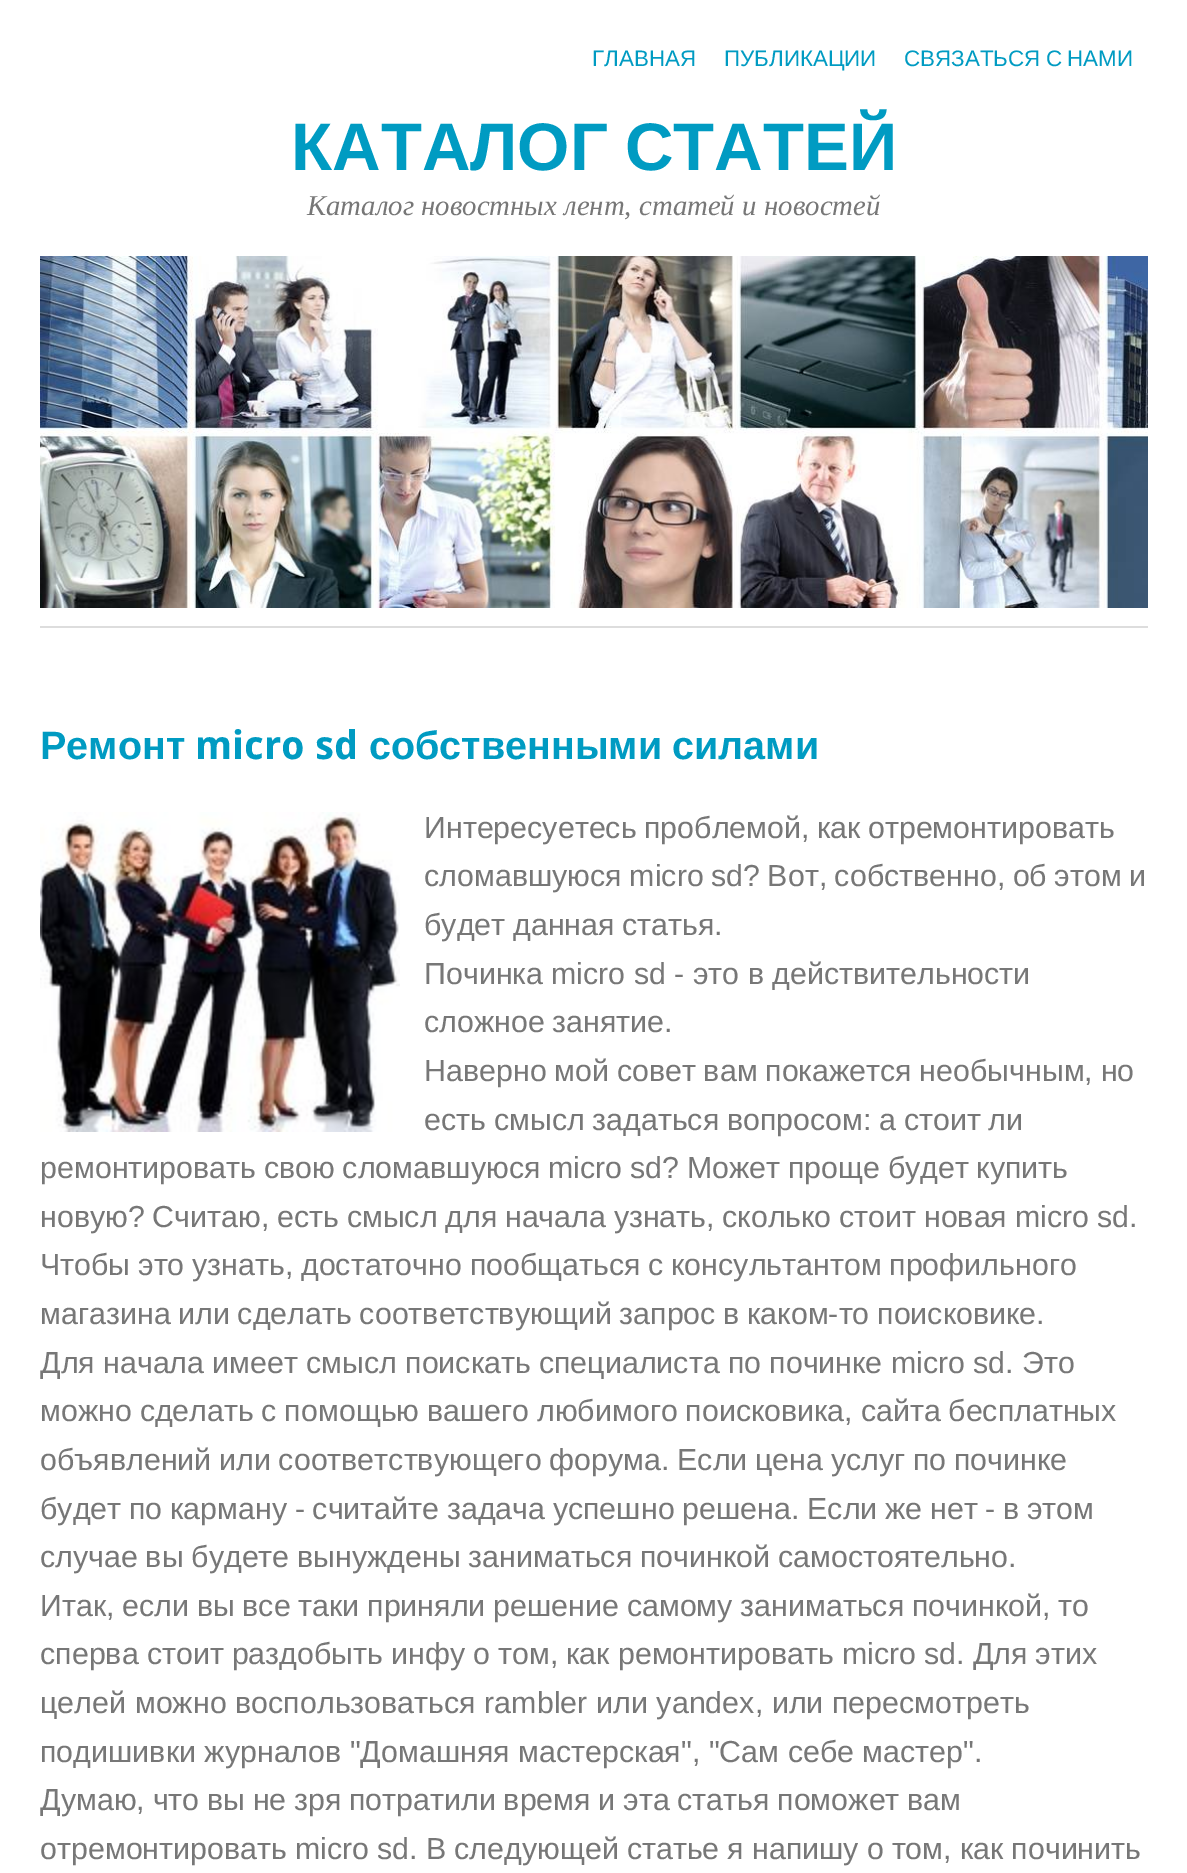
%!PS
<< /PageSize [1187 1873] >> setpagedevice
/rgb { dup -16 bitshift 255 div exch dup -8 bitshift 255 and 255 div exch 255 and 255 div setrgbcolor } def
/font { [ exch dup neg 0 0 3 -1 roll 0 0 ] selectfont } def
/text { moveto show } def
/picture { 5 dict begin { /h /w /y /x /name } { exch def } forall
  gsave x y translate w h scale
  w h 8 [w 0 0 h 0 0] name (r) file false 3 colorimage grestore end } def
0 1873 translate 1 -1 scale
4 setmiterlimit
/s1 { /LiberationSans-Regular 22.4 font 16#009BC2 rgb } def
/s2 { /LiberationSans-Bold 39.5 font 16#009BC2 rgb } def
/s3 { /DroidSans-Bold 39.5 font 16#009BC2 rgb } def
/s4 { /LiberationSans-Regular 30.4 font 16#777777 rgb } def
16#FFFFFF rgb
0 0 1187 1873 rectfill
s1
(ГЛАВНАЯ) 592 66 text
(ПУБЛИКАЦИИ) 724 66 text
904 66 moveto -1 0 32 (СВЯЗАТЬСЯ С НАМИ) widthshow
/LiberationSans-Bold 67.25 font
291 170 moveto -2 0 32 (КАТАЛОГ СТАТЕЙ) widthshow
/LiberationSerif-Italic 28.75 font
16#777777 rgb
307 215 moveto 0.25 0 32 (Каталог новостных лент, статей и новостей) widthshow
(pic1.raw) 40 256 1108 352 picture
16#DDDDDD rgb
40 626 1108 2 rectfill
s2
(Ремонт) 40 759 text
s3
(micro sd) 195 759 text
s2
(собственными) 369 759 text
(силами) 672 759 text
(pic2.raw) 40 812 360 320 picture
/LiberationSans-Regular 30.4 font
16#777777 rgb
424 838 moveto -1 0 32 (Интересуетесь проблемой, как отремонтировать) widthshow
424 886 moveto -1 0 32 (сломавшуюся micro sd? Вот, собственно, об этом и) widthshow
424 935 moveto -0.75 0 32 (будет данная статья.) widthshow
(Починка micro sd - это в действительности) 424 984 text
424 1032 moveto -1 0 32 (сложное занятие.) widthshow
424 1081 moveto -0.75 0 32 (Наверно мой совет вам покажется необычным, но) widthshow
424 1130 moveto -0.75 0 32 (есть смысл задаться вопросом: а стоит ли) widthshow
40 1178 moveto -0.75 0 32 (ремонтировать свою сломавшуюся micro sd? Может проще будет купить) widthshow
40 1227 moveto -0.75 0 32 (новую? Считаю, есть смысл для начала узнать, сколько стоит новая micro sd.) widthshow
40 1275 moveto -0.75 0 32 (Чтобы это узнать, достаточно пообщаться с консультантом профильного) widthshow
40 1324 moveto -0.75 0 32 (магазина или сделать соответствующий запрос в каком-то поисковике.) widthshow
40 1373 moveto -0.25 0 32 (Для начала имеет смысл поискать специалиста по починке micro sd. Это) widthshow
40 1421 moveto -0.75 0 32 (можно сделать с помощью вашего любимого поисковика, сайта бесплатных) widthshow
40 1470 moveto -0.75 0 32 (объявлений или соответствующего форума. Если цена услуг по починке) widthshow
40 1519 moveto -0.75 0 32 (будет по карману - считайте задача успешно решена. Если же нет - в этом) widthshow
40 1567 moveto -0.75 0 32 (случае вы будете вынуждены заниматься починкой самостоятельно.) widthshow
40 1616 moveto -0.75 0 32 (Итак, если вы все таки приняли решение самому заниматься починкой, то) widthshow
40 1664 moveto -0.4 0 32 (сперва стоит раздобыть инфу о том, как ремонтировать micro sd. Для этих) widthshow
40 1713 moveto 0.25 0 32 (целей можно воспользоваться rambler или yandex, или пересмотреть) widthshow
(подишивки журналов "Домашняя мастерская", "Сам себе мастер".) 40 1762 text
40 1810 moveto -0.75 0 32 (Думаю, что вы не зря потратили время и эта статья поможет вам) widthshow
40 1859 moveto -0.4 0 32 (отремонтировать micro sd. В следующей статье я напишу о том, как починить) widthshow
showpage
